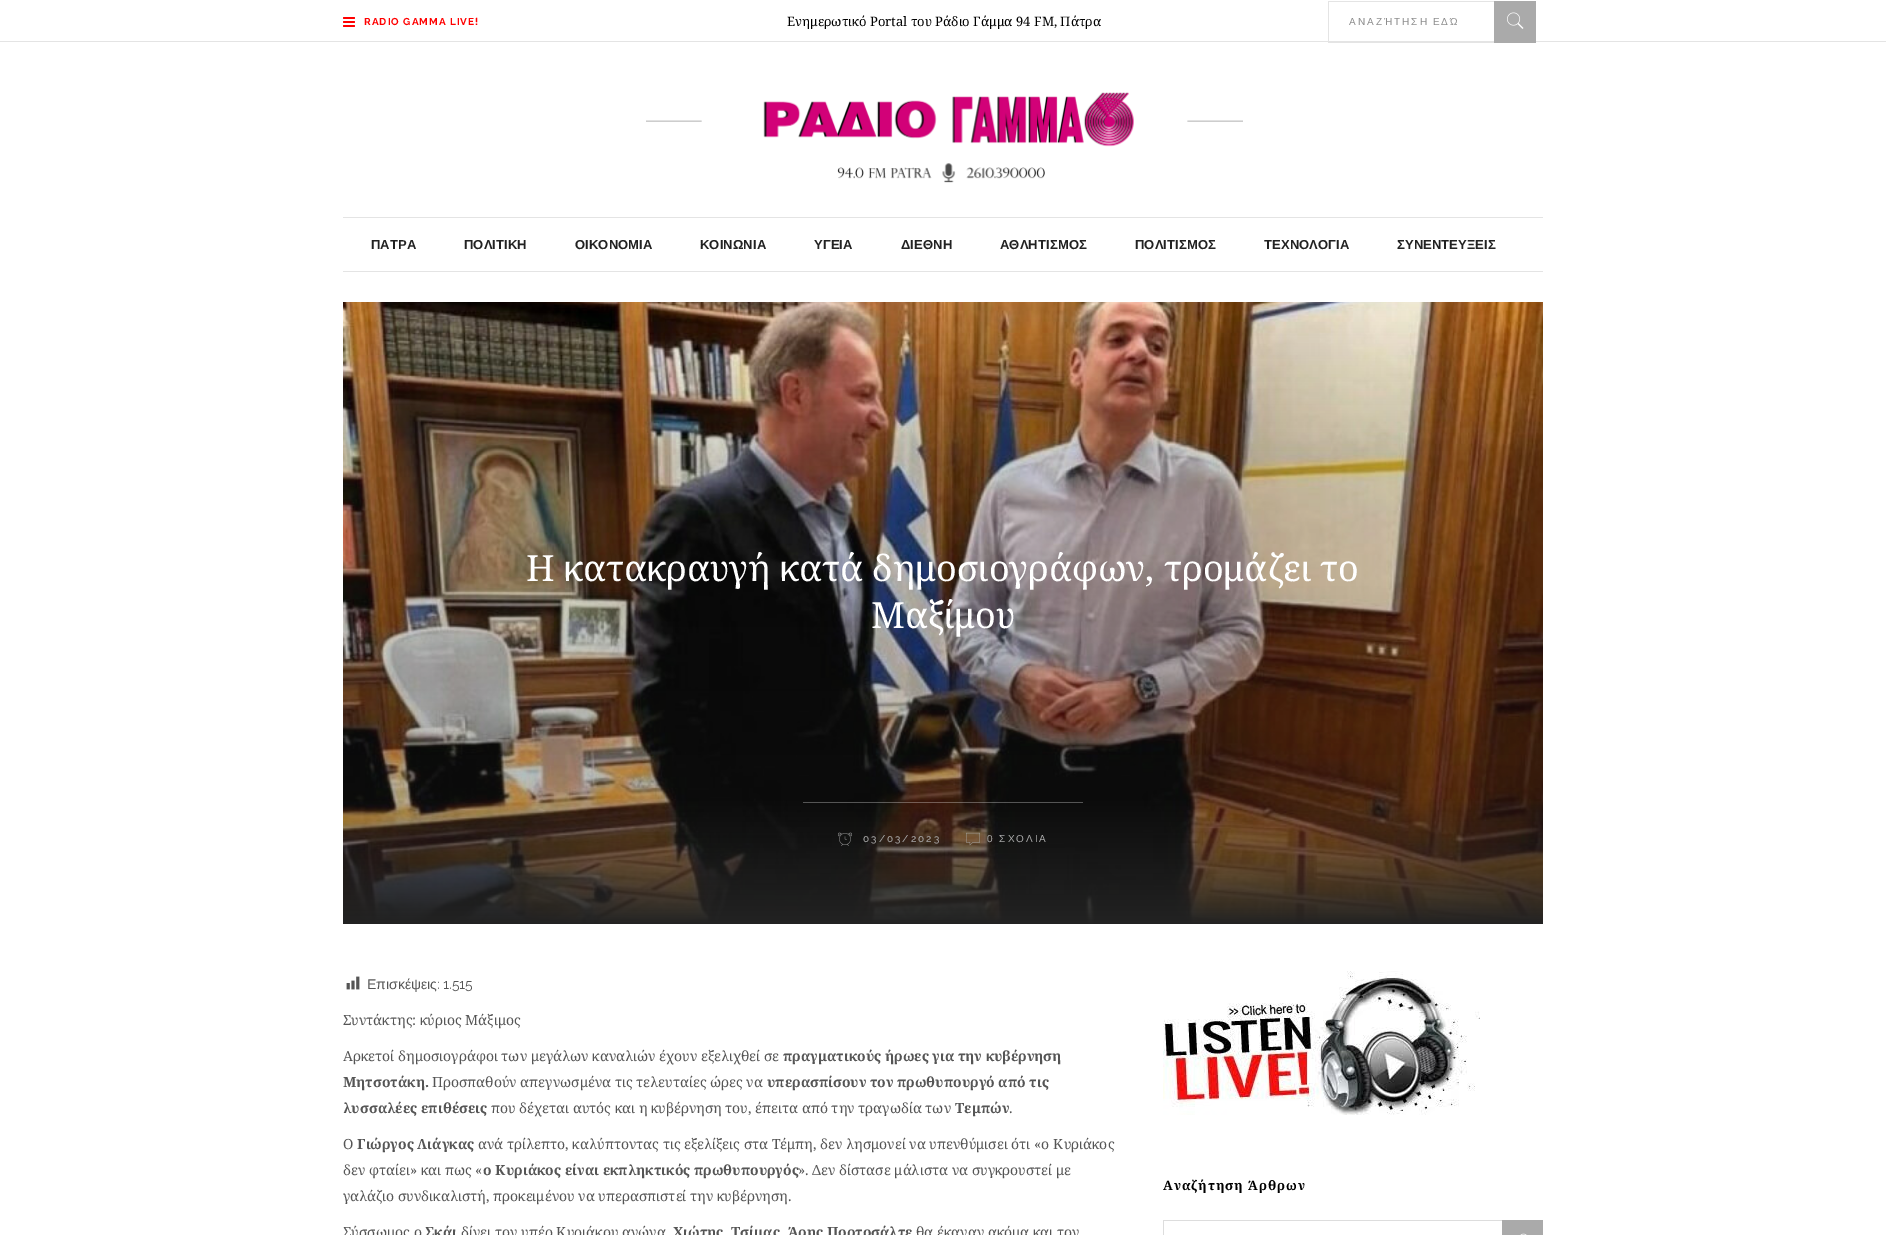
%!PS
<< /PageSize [1886 1235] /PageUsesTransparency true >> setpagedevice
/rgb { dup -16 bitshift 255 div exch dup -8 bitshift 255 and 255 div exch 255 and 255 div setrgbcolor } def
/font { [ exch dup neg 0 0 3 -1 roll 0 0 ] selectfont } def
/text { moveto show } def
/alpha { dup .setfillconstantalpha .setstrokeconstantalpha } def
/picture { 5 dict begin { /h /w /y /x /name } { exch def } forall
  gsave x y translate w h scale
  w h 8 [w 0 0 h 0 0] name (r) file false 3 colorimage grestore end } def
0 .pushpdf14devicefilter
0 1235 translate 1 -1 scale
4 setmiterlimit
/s1 { /NotoSerif-Regular 13 font 16#000000 rgb } def
/s2 { /NotoSerif-Regular 36 font 16#FFFFFF rgb } def
/s3 { /LiberationSans-Regular 14 font 16#555555 rgb } def
/s4 { /Raleway-Regular 14 font 16#555555 rgb } def
/s5 { /NotoSerif-Regular 14 font 16#555555 rgb } def
/s6 { /NotoSerif-Bold 14 font 16#555555 rgb } def
16#FFFFFF rgb
0 0 1886 1235 rectfill
16#E4E4E4 rgb
0 41 1886 1 rectfill
(pic1.raw) 343 17 12 10 picture
/Raleway-Bold 10 font
16#FF0000 rgb
364 25 moveto 1 0 (RADIO GAMMA LIVE!) ashow
s1
(Ενημερωτικό Portal του Ράδιο Γάμμα 94 FM, Πάτρα) 787 26 text
16#E4E4E4 rgb
1328 1 166 1 rectfill
1328 42 166 1 rectfill
1328 1 1 42 rectfill
/LiberationSans-Regular 10 font
16#8D8D8D rgb
1349 25 moveto -1 0 32 2 0 (ΑΝΑΖΉΤΗΣΗ ΕΔΏ) awidthshow
16#AAAAAA rgb
1494 1 42 42 rectfill
(pic2.raw) 1507 12 17 17 picture
(pic3.raw) 646 92 597 91 picture
16#E4E4E4 rgb
343 217 1200 1 rectfill
343 271 1200 1 rectfill
/LiberationSans-Bold 13 font
16#222222 rgb
371 249 moveto 0.1 0 (ΠΑΤΡΑ) ashow
464 249 moveto 0.1 0 (ΠΟΛΙΤΙΚΗ) ashow
575 249 moveto 0.1 0 (ΟΙΚΟΝΟΜΙΑ) ashow
700 249 moveto 0.1 0 (ΚΟΙΝΩΝΙΑ) ashow
814 249 moveto 0.1 0 (ΥΓΕΙΑ) ashow
901 249 moveto 0.1 0 (ΔΙΕΘΝΗ) ashow
1000 249 moveto 0.1 0 (ΑΘΛΗΤΙΣΜΟΣ) ashow
1135 249 moveto 0.1 0 (ΠΟΛΙΤΙΣΜΟΣ) ashow
1264 249 moveto 0.1 0 (ΤΕΧΝΟΛΟΓΙΑ) ashow
1397 249 moveto 0.1 0 (ΣΥΝΕΝΤΕΥΞΕΙΣ) ashow
(pic4.raw) 343 302 1200 622 picture
s2
(Η κατακραυγή κατά δημοσιογράφων, τρομάζει το) 526 581 text
(Μαξίμου) 871 628 text
0.3 alpha
803 802 280 1 rectfill
1 alpha
(pic5.raw) 838 832 14 14 picture
/Raleway-Medium 10 font
16#AAAAAA rgb
863 842 moveto 2 0 (03/03/2023) ashow
(pic6.raw) 966 832 14 14 picture
/LiberationSans-Regular 10 font
987 842 moveto 2 0 (0 ΣΧΟΛΙΑ) ashow
(pic7.raw) 346 976 14 14 picture
s3
(Επισκέψεις) 367 989 text
s4
(: 1.515) 437 989 text
s5
(Συντάκτης: κύριος Μάξιμος) 343 1025 text
(Αρκετοί δημοσιογράφοι των μεγάλων καναλιών έχουν εξελιχθεί σε) 343 1061 text
s6
(πραγματικούς ήρωες για την κυβέρνηση) 783 1061 text
(Μητσοτάκη.) 343 1087 text
s5
(Προσπαθούν απεγνωσμένα τις τελευταίες ώρες να) 432 1087 text
s6
(υπερασπίσουν τον πρωθυπουργό από τις) 767 1087 text
(λυσσαλέες επιθέσεις) 343 1113 text
s5
(που δέχεται αυτός και η κυβέρνηση του, έπειτα από την τραγωδία των) 491 1113 text
s6
(Τεμπών) 955 1113 text
s5
(.) 1009 1113 text
(Ο) 343 1149 text
s6
(Γιώργος Λιάγκας) 357 1149 text
s5
(ανά τρίλεπτο, καλύπτοντας τις εξελίξεις στα Τέμπη, δεν λησμονεί να υπενθύμισει ότι «ο Κυριάκος) 478 1149 text
(δεν φταίει» και πως «) 343 1175 text
s6
(ο Κυριάκος είναι εκπληκτικός πρωθυπουργός) 483 1175 text
s5
(». Δεν δίστασε μάλιστα να συγκρουστεί με) 798 1175 text
(γαλάζιο συνδικαλιστή, προκειμένου να υπερασπιστεί την κυβέρνηση.) 343 1201 text
(Σύσσωμος ο) 343 1237 text
s6
(Σκάι) 425 1237 text
s5
(δίνει τον υπέρ Κυριάκου αγώνα) 461 1237 text
s6
(Χιώτης, Τσίμας, Άρης Πορτοσάλτε) 673 1237 text
s5
(θα έκαναν ακόμα και τον) 916 1237 text
(pic8.raw) 1163 971 317 144 picture
/NotoSerif-Bold 13 font
16#000000 rgb
1163 1190 moveto 1 0 (Αναζήτηση Άρθρων) ashow
16#DDDDDD rgb
1163 1220 339 1 rectfill
1163 1220 1 15 rectfill
16#AAAAAA rgb
1502 1220 41 15 rectfill
(pic9.raw) 1520 1233 7 2 picture
.poppdf14devicefilter showpage
